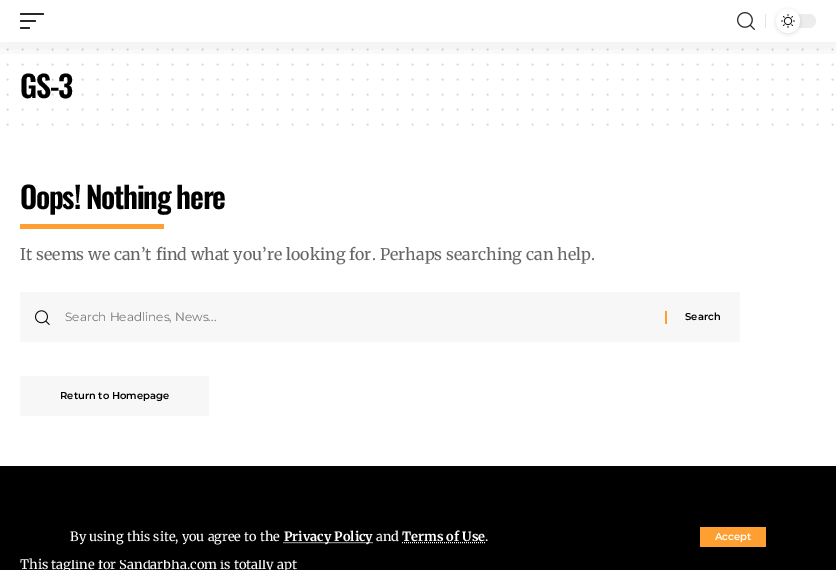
%!PS
<< /PageSize [836 570] /PageUsesTransparency true >> setpagedevice
/rgb { dup -16 bitshift 255 div exch dup -8 bitshift 255 and 255 div exch 255 and 255 div setrgbcolor } def
/font { [ exch dup neg 0 0 3 -1 roll 0 0 ] selectfont } def
/text { moveto show } def
/alpha { dup .setfillconstantalpha .setstrokeconstantalpha } def
/circle { newpath 0 360 arc closepath } def
/roundrect { 5 dict begin { /r /h /w /y /x } { exch def } forall
  x r add y moveto x w add y 2 copy h add r arct x w add y h add x 1 index r arct
  x y h add x y r arct x y 2 copy exch w add exch r arct closepath end } def
/shadow { 12 dict begin { /a /b /q /h /w /y /x } { exch def } forall gsave /was 0 def
  9 -2 -9 { dup b mul 4 div /e exch def 1 sub .425 mul 2.718 exch exp 1 add a .99 .min exch div /now exch def
    1 1 now sub 1 was sub div sub alpha /was now def
    w h .min e 2 mul add 0 gt { x e sub y e sub w e 2 mul add h e 2 mul add
      q e add b .6 mul add w h .min 2 div e add .min 0 .max roundrect fill } if } for grestore end } def
/picture { 5 dict begin { /h /w /y /x /name } { exch def } forall
  gsave x y translate w h scale
  w h 8 [w 0 0 h 0 0] name (r) file false 3 colorimage grestore end } def
0 .pushpdf14devicefilter
0 570 translate 1 -1 scale
4 setmiterlimit
/s1 { /Merriweather-Regular 16 font 16#666666 rgb } def
/s2 { /Montserrat-Regular 12 font 16#757575 rgb } def
/s3 { /Montserrat-SemiBold 10 font 16#000000 rgb } def
/s4 { /Merriweather-Regular 13 font 16#FFFFFF rgb } def
/s5 { /Merriweather-Regular 12.75 font 16#FFFFFF rgb } def
/s6 { /Merriweather-Bold 12.75 font 16#FFFFFF rgb } def
/s7 { /Montserrat-SemiBold 10 font 16#FFFFFF rgb } def
16#FFFFFF rgb
0 0 836 570 rectfill
16#D9D9D9 rgb
2 setlinewidth
1 setlinecap
[0 15] 0 setdash
7.5 49.5 moveto 832.7 49.5 lineto stroke
7.5 64.5 moveto 832.7 64.5 lineto stroke
7.5 79.5 moveto 832.7 79.5 lineto stroke
7.5 94.5 moveto 832.7 94.5 lineto stroke
7.5 109.5 moveto 832.7 109.5 lineto stroke
7.5 124.5 moveto 832.7 124.5 lineto stroke
/Oswald-SemiBold 30 font
16#000000 rgb
20 98 moveto -1.25 0 (GS-3) ashow
20 209 moveto -1.25 0 (Oops! Nothing here) ashow
16#FF9F31 rgb
20 224 144 5 rectfill
s1
(It seems we can’t find what you’re looking for. Perhaps searching can help.) 20 260 text
16#F7F7F7 rgb
20 292 720 50 rectfill
(pic1.raw) 35 310 15 15 picture
s2
(Search Headlines, News...) 65 321 text
16#FF9F31 rgb
665 311 2 13 rectfill
s3
(Search) 685 320 text
16#F7F7F7 rgb
20 376 189 40 rectfill
s3
(Return to Homepage) 60 399 text
gsave
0 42 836 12 rectclip
0 4 836 42 0 15 0.07 shadow
grestore
16#282828 rgb
20 13 24 2 1 roundrect fill
20 20 16 2 1 roundrect fill
20 27 10 2 1 roundrect fill
(pic2.raw) 737 12 18 18 picture
16#E4E4E4 rgb
765 14 1 14 rectfill
16#EDEDED rgb
776 14 40 14 7 roundrect fill
16#000000 rgb
776 10 24 24 12 2 0.12 shadow
16#FFFFFF rgb
788 21 12 circle fill
(pic3.raw) 781 14 14 14 picture
16#000000 rgb
0 466 836 104 rectfill
58 517 720 46 0 6 0.12 shadow
s4
(This tagline for Sandarbha.com is totally apt) 20 569 text
16#000000 rgb
71 558 224 2 rectfill
s5
(By using this site, you agree to the) 70 541 text
1 setlinewidth
0 setlinecap
[1 1] 0 setdash
283.5 542.5 moveto 373 542.5 lineto stroke
s6
(Privacy Policy) 284 541 text
s5
(and) 376 541 text
s6
(Terms of Use) 402 541 text
402 542.5 moveto 485.5 542.5 lineto stroke
s5
(.) 485 541 text
16#FF9F31 rgb
700 527 66 20 rectfill
s7
(Accept) 715 540 text
.poppdf14devicefilter showpage
